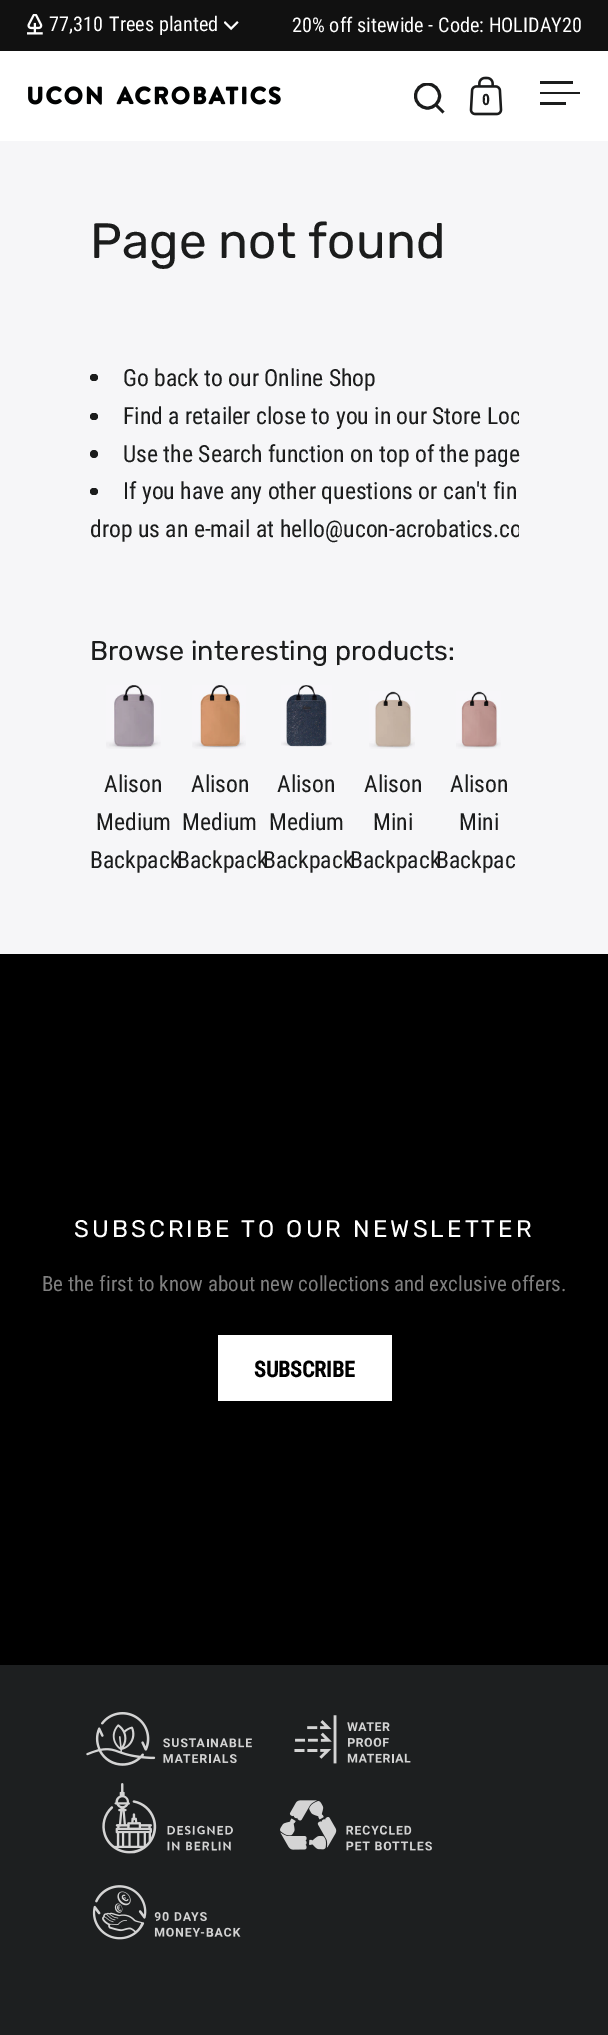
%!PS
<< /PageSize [608 2035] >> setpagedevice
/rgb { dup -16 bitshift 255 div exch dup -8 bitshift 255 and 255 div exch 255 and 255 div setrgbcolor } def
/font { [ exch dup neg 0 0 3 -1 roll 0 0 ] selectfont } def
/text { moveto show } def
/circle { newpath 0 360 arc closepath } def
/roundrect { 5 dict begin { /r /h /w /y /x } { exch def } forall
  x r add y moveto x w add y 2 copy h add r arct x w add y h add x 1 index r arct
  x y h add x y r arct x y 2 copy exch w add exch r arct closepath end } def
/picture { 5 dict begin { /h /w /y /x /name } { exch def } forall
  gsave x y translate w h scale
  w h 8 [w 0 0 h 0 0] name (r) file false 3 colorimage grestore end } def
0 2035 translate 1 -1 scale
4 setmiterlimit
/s1 { /RobotoCondensed-Regular 20.25 font 16#FFFFFF rgb } def
/s2 { /RobotoCondensed-Bold 15 font 16#1B1C1C rgb } def
/s3 { /Rubik-Regular 49.5 font 16#1B1C1C rgb } def
/s4 { /RobotoCondensed-Regular 23.6 font 16#1B1C1C rgb } def
/s5 { /Rubik-Regular 27 font 16#1B1C1C rgb } def
/s6 { /RobotoCondensed-Regular 21 font 16#7F7F7F rgb } def
/s7 { /RobotoCondensed-Bold 22 font 16#000000 rgb } def
16#F6F6F8 rgb
0 0 608 2035 rectfill
16#111111 rgb
0 0 608 51 rectfill
(pic1.raw) 27 14 16 21 picture
s1
(77) 49 31 text
(,) 69 31 text
gsave
74 14 9 22 rectclip
(3) 73 31 text
grestore
(10) 83 31 text
(Trees planted) 109 31 text
(pic2.raw) 224 21 15 10 picture
(20% off sitewide - Code: HOLIDAY20) 292 32 text
0 51 608 90 rectfill
(pic3.raw) 28 86 253 19 picture
gsave
414 83 32 31 rectclip
16#1B1C1C rgb
3 setlinewidth
427.5 96 12 circle stroke
grestore
16#1B1C1C rgb
435.5 106.5 moveto 437.5 104.5 lineto 444.5 111.5 lineto 442.5 113.5 lineto closepath fill
(pic4.raw) 469 76 34 40 picture
s2
(0) 482 105 text
540 81 33 3 rectfill
540 92 40 2 rectfill
540 102 26 3 rectfill
s3
(Page not found) 90 258 text
90 374 8 7 3.5 roundrect fill
s4
(Go back to our Online Shop) 123 386 text
90 413 8 7 3.5 roundrect fill
(Find a retailer close to you in our) 123 424 text
gsave
90 215 429 664 rectclip
(Store Loc) 432 424 text
grestore
94 454 4 circle fill
(Use the Search function on top of the page) 123 462 text
90 488 8 7 3.5 roundrect fill
(If you have any other questions or can't fin) 123 499 text
(drop us an e-mail at) 90 537 text
gsave
90 215 429 664 rectclip
(hello@ucon-acrobatics.co) 280 537 text
grestore
s5
(Browse interesting products:) 90 660 text
(pic5.raw) 106 685 55 64 picture
s4
(Alison) 104 792 text
(Medium) 96 830 text
(Backpack) 90 868 text
(pic6.raw) 192 685 54 64 picture
(Alison) 191 792 text
(Medium) 182 830 text
(Backpack) 177 868 text
(pic7.raw) 281 685 51 62 picture
(Alison) 277 792 text
(Medium) 269 830 text
(Backpack) 263 868 text
(pic8.raw) 369 691 46 58 picture
(Alison) 364 792 text
(Mini) 373 830 text
(Backpack) 350 868 text
(pic9.raw) 456 691 45 58 picture
(Alison) 450 792 text
(Mini) 459 830 text
(Backpac) 436 868 text
16#000000 rgb
0 954 608 711 rectfill
/Rubik-Regular 24 font
16#FFFFFF rgb
74 1237 moveto 3 0 (SUBSCRIBE TO OUR NEWSLETTER) ashow
s6
(Be the first to know about new collections and exclusive offers.) 42 1291 text
16#FFFFFF rgb
218 1335 174 66 rectfill
s7
(SUBSCRIBE) 254 1377 text
16#1D1F20 rgb
0 1665 608 370 rectfill
(pic10.raw) 86 1712 166 54 picture
(pic11.raw) 294 1715 117 49 picture
(pic12.raw) 102 1783 131 71 picture
(pic13.raw) 280 1800 152 51 picture
(pic14.raw) 92 1885 149 55 picture
showpage
